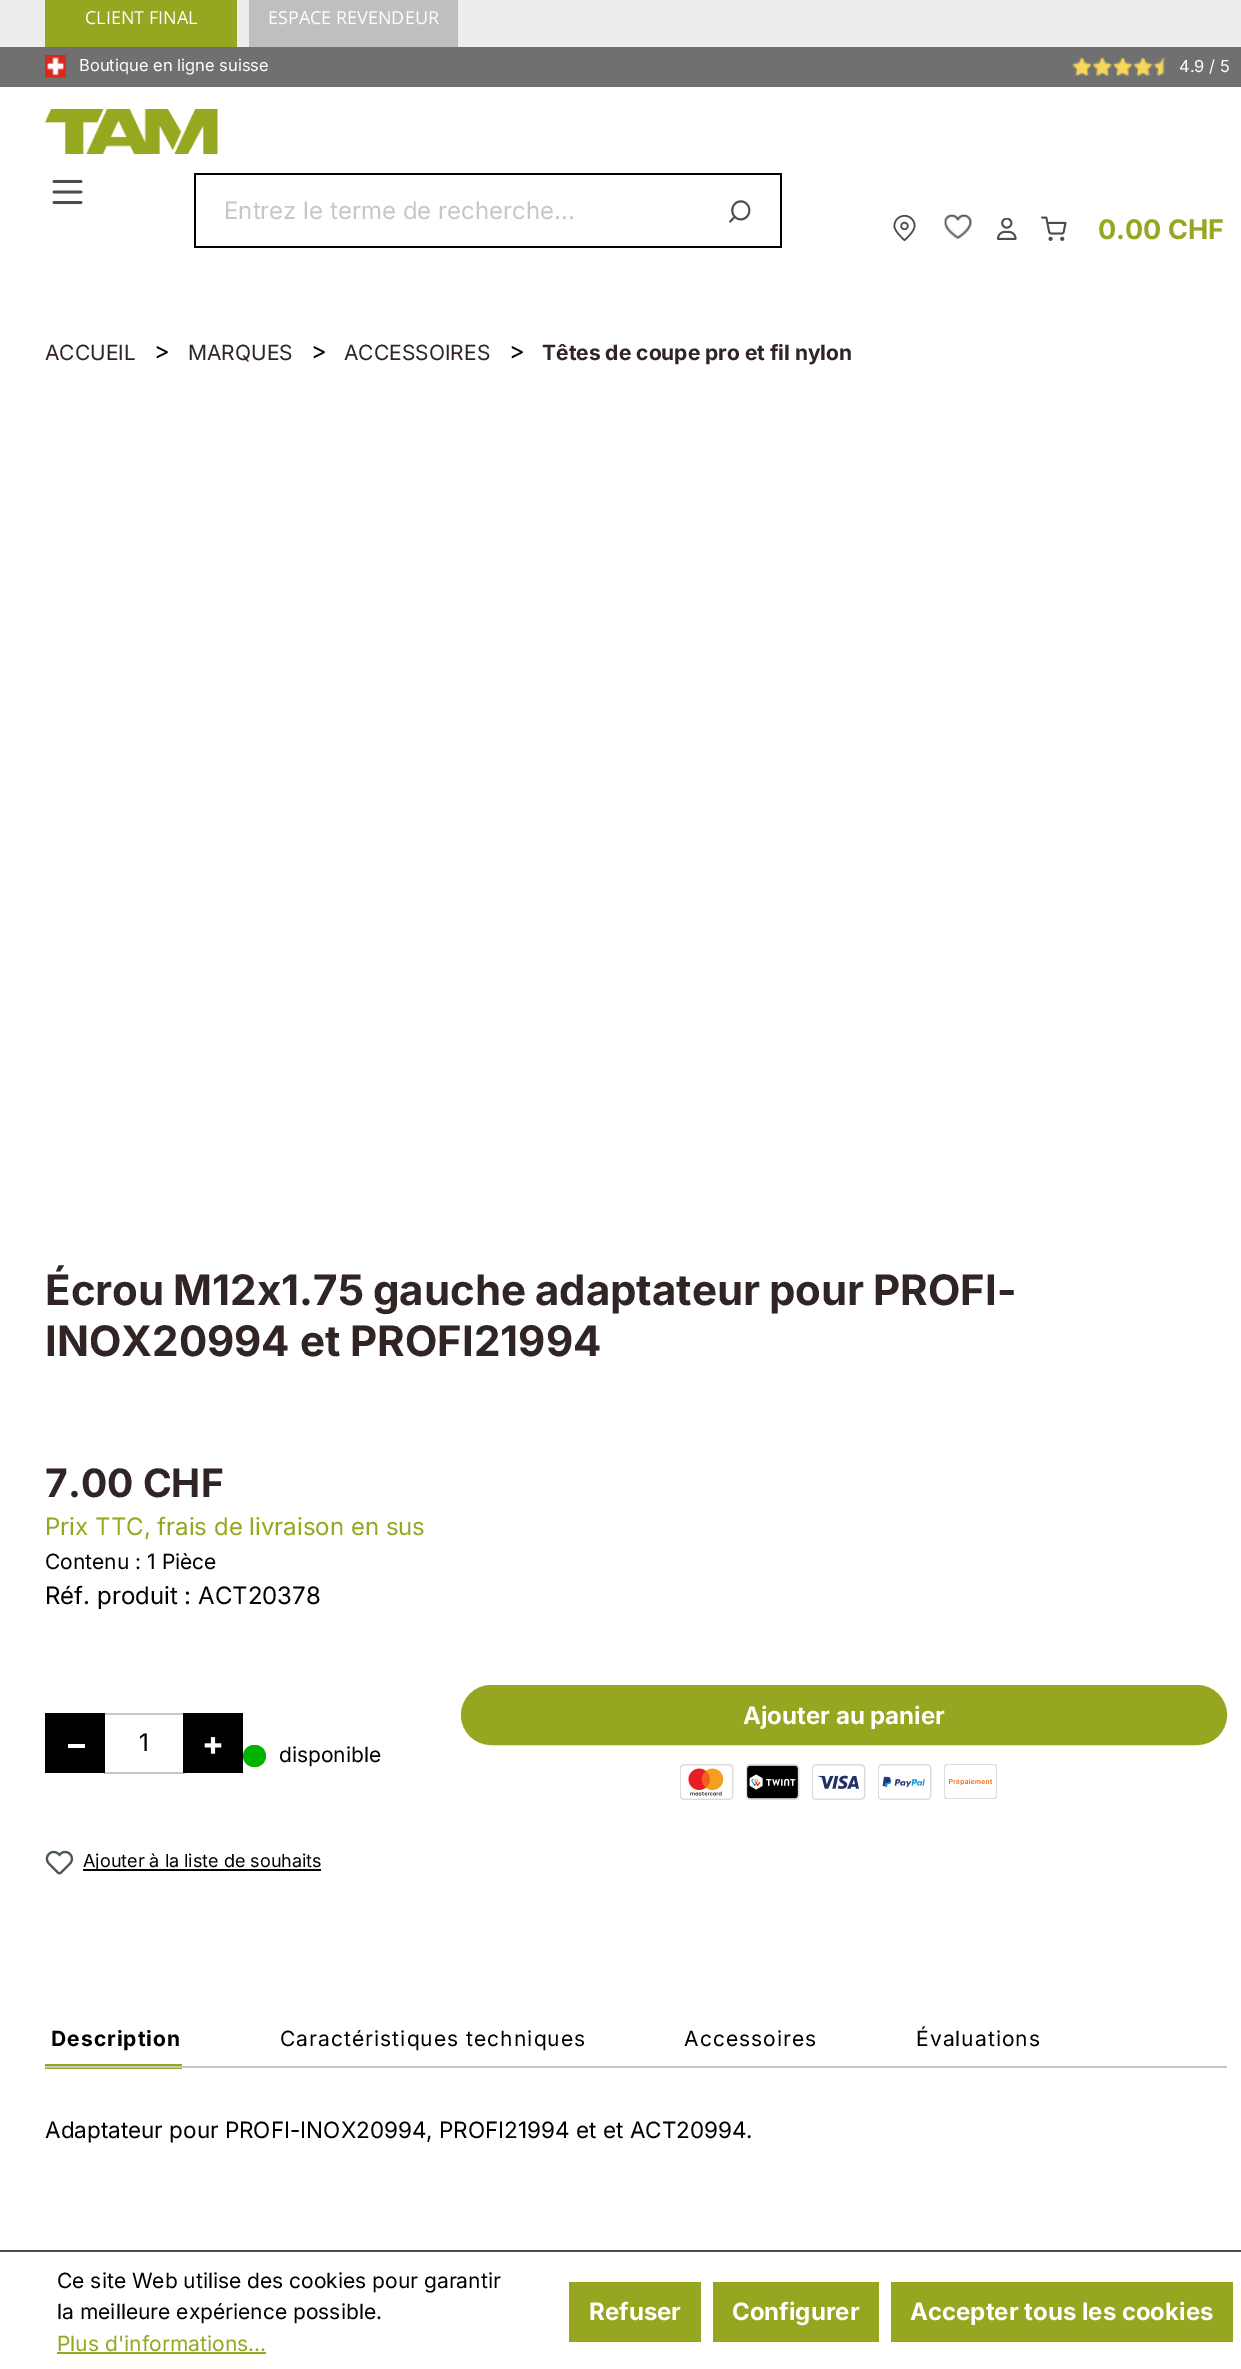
%!PS
<< /PageSize [1241 2369] >> setpagedevice
/rgb { dup -16 bitshift 255 div exch dup -8 bitshift 255 and 255 div exch 255 and 255 div setrgbcolor } def
/font { [ exch dup neg 0 0 3 -1 roll 0 0 ] selectfont } def
/text { moveto show } def
/roundrect { 5 dict begin { /r /h /w /y /x } { exch def } forall
  x r add y moveto x w add y 2 copy h add r arct x w add y h add x 1 index r arct
  x y h add x y r arct x y 2 copy exch w add exch r arct closepath end } def
/picture { 5 dict begin { /h /w /y /x /name } { exch def } forall
  gsave x y translate w h scale
  w h 8 [w 0 0 h 0 0] name (r) file false 3 colorimage grestore end } def
0 2369 translate 1 -1 scale
4 setmiterlimit
/s1 { /OpenSans-Regular 18 font 16#FFFFFF rgb } def
/s2 { /Inter-Regular 16.5 font 16#FFFFFF rgb } def
/s3 { /Inter-Regular 24 font 16#C7C7C7 rgb } def
/s4 { /Inter-Bold 27 font 16#96A620 rgb } def
/s5 { /Inter-Regular 21 font 16#312424 rgb } def
/s6 { /Inter-Regular 24 font 16#000000 rgb } def
/s7 { /Inter-Bold 21 font 16#312424 rgb } def
/s8 { /Inter-Bold 42 font 16#312424 rgb } def
/s9 { /Inter-Bold 39 font 16#312424 rgb } def
/s10 { /Inter-Regular 24 font 16#96A620 rgb } def
/s11 { /Inter-Regular 21 font 16#000000 rgb } def
/s12 { /Inter-Bold 24 font 16#FFFFFF rgb } def
/s13 { /Inter-Regular 18 font 16#000000 rgb } def
/s14 { /Inter-Regular 22.5 font 16#000000 rgb } def
/s15 { /Inter-Regular 21 font 16#96A620 rgb } def
16#FFFFFF rgb
0 0 1241 2369 rectfill
16#EDEDED rgb
0 0 1241 47 rectfill
16#96A620 rgb
45 0 192 47 rectfill
s1
(CLIENT FINAL) 85 24 text
16#BFBFBF rgb
249 0 209 47 rectfill
s1
(ESPACE REVENDEUR) 268 24 text
16#707070 rgb
0 47 1241 40 rectfill
(pic1.raw) 45 55 21 23 picture
s2
(Boutique en ligne suisse) 79 71 text
(pic2.raw) 1072 58 93 18 picture
(4.9 / 5) 1179 72 text
(pic3.raw) 45 109 173 45 picture
(pic4.raw) 52 180 31 24 picture
16#000000 rgb
194 173 588 2 rectfill
194 246 516 2 rectfill
194 173 2 75 rectfill
s3
(Entrez le terme de recherche...) 224 219 text
16#000000 rgb
780 173 2 75 rectfill
708 246 74 2 rectfill
(pic5.raw) 729 200 22 23 picture
(pic6.raw) 893 214 23 28 picture
(pic7.raw) 944 214 28 26 picture
(pic8.raw) 996 218 21 22 picture
(pic9.raw) 1041 216 26 25 picture
s4
(0.00 CHF) 1098 239 text
s5
(ACCUEIL) 45 360 text
s6
(>) 154 359 text
s5
(MARQUES) 188 360 text
s6
(>) 311 359 text
s5
(ACCESSOIRES) 344 360 text
s6
(>) 509 359 text
s7
(Têtes de coupe pro et fil nylon) 542 360 text
/Inter-Bold 42 font
45 1305 moveto -1 0 32 (Écrou M12x1.75 gauche adaptateur pour PROFI-) widthshow
(INOX20994 et PROFI21994) 45 1356 text
s9
(7.00 CHF) 45 1497 text
s10
(Prix TTC, frais de livraison en sus) 45 1535 text
s11
(Contenu : 1 Pièce) 45 1569 text
s6
(Réf. produit : ACT20378) 45 1604 text
16#96A620 rgb
462 1686 764 58 29 roundrect gsave fill grestore
2 setlinewidth
stroke
s12
(Ajouter au panier) 743 1724 text
(pic10.raw) 680 1764 54 36 picture
(pic11.raw) 746 1764 54 36 picture
(pic12.raw) 812 1764 54 36 picture
(pic13.raw) 878 1764 54 36 picture
(pic14.raw) 944 1764 53 35 picture
16#C7C7C7 rgb
104 1713 81 2 rectfill
104 1772 81 2 rectfill
16#000000 rgb
45 1713 60 60 rectfill
16#FFFFFF rgb
68 1744 17 4 rectfill
s6
(1) 139 1751 text
183 1713 60 60 rectfill
(pic15.raw) 204 1737 18 17 picture
16#00B300 rgb
243 1745 23 22 11 roundrect fill
s11
(disponible) 279 1762 text
(pic16.raw) 45 1850 29 25 picture
83 1869 238 2 rectfill
s13
(Ajouter à la liste de souhaits) 83 1867 text
16#96A620 rgb
45 2064 137 5 rectfill
/Inter-Bold 21 font
16#000000 rgb
51 2046 moveto 1.05 0 (Description) ashow
/Inter-Regular 21 font
280 2046 moveto 1.05 0 (Caractéristiques techniques) ashow
684 2046 moveto 1.05 0 (Accessoires) ashow
916 2046 moveto 1.05 0 (Évaluations) ashow
16#C7C7C7 rgb
45 2066 1182 2 rectfill
s14
(Adaptateur pour PROFI-INOX20994, PROFI21994 et et ACT20994.) 45 2138 text
16#4D4D4D rgb
0 2250 1241 2 rectfill
s11
(Ce site Web utilise des cookies pour garantir) 57 2288 text
(la meilleure expérience possible.) 57 2319 text
s15
(Plus d'informations...) 57 2351 text
57 2352 209 2 rectfill
569 2282 132 60 rectfill
s12
(Refuser) 589 2320 text
16#96A620 rgb
713 2282 166 60 rectfill
s12
(Configurer) 732 2320 text
16#96A620 rgb
891 2282 342 60 rectfill
s12
(Accepter tous les cookies) 910 2320 text
showpage
